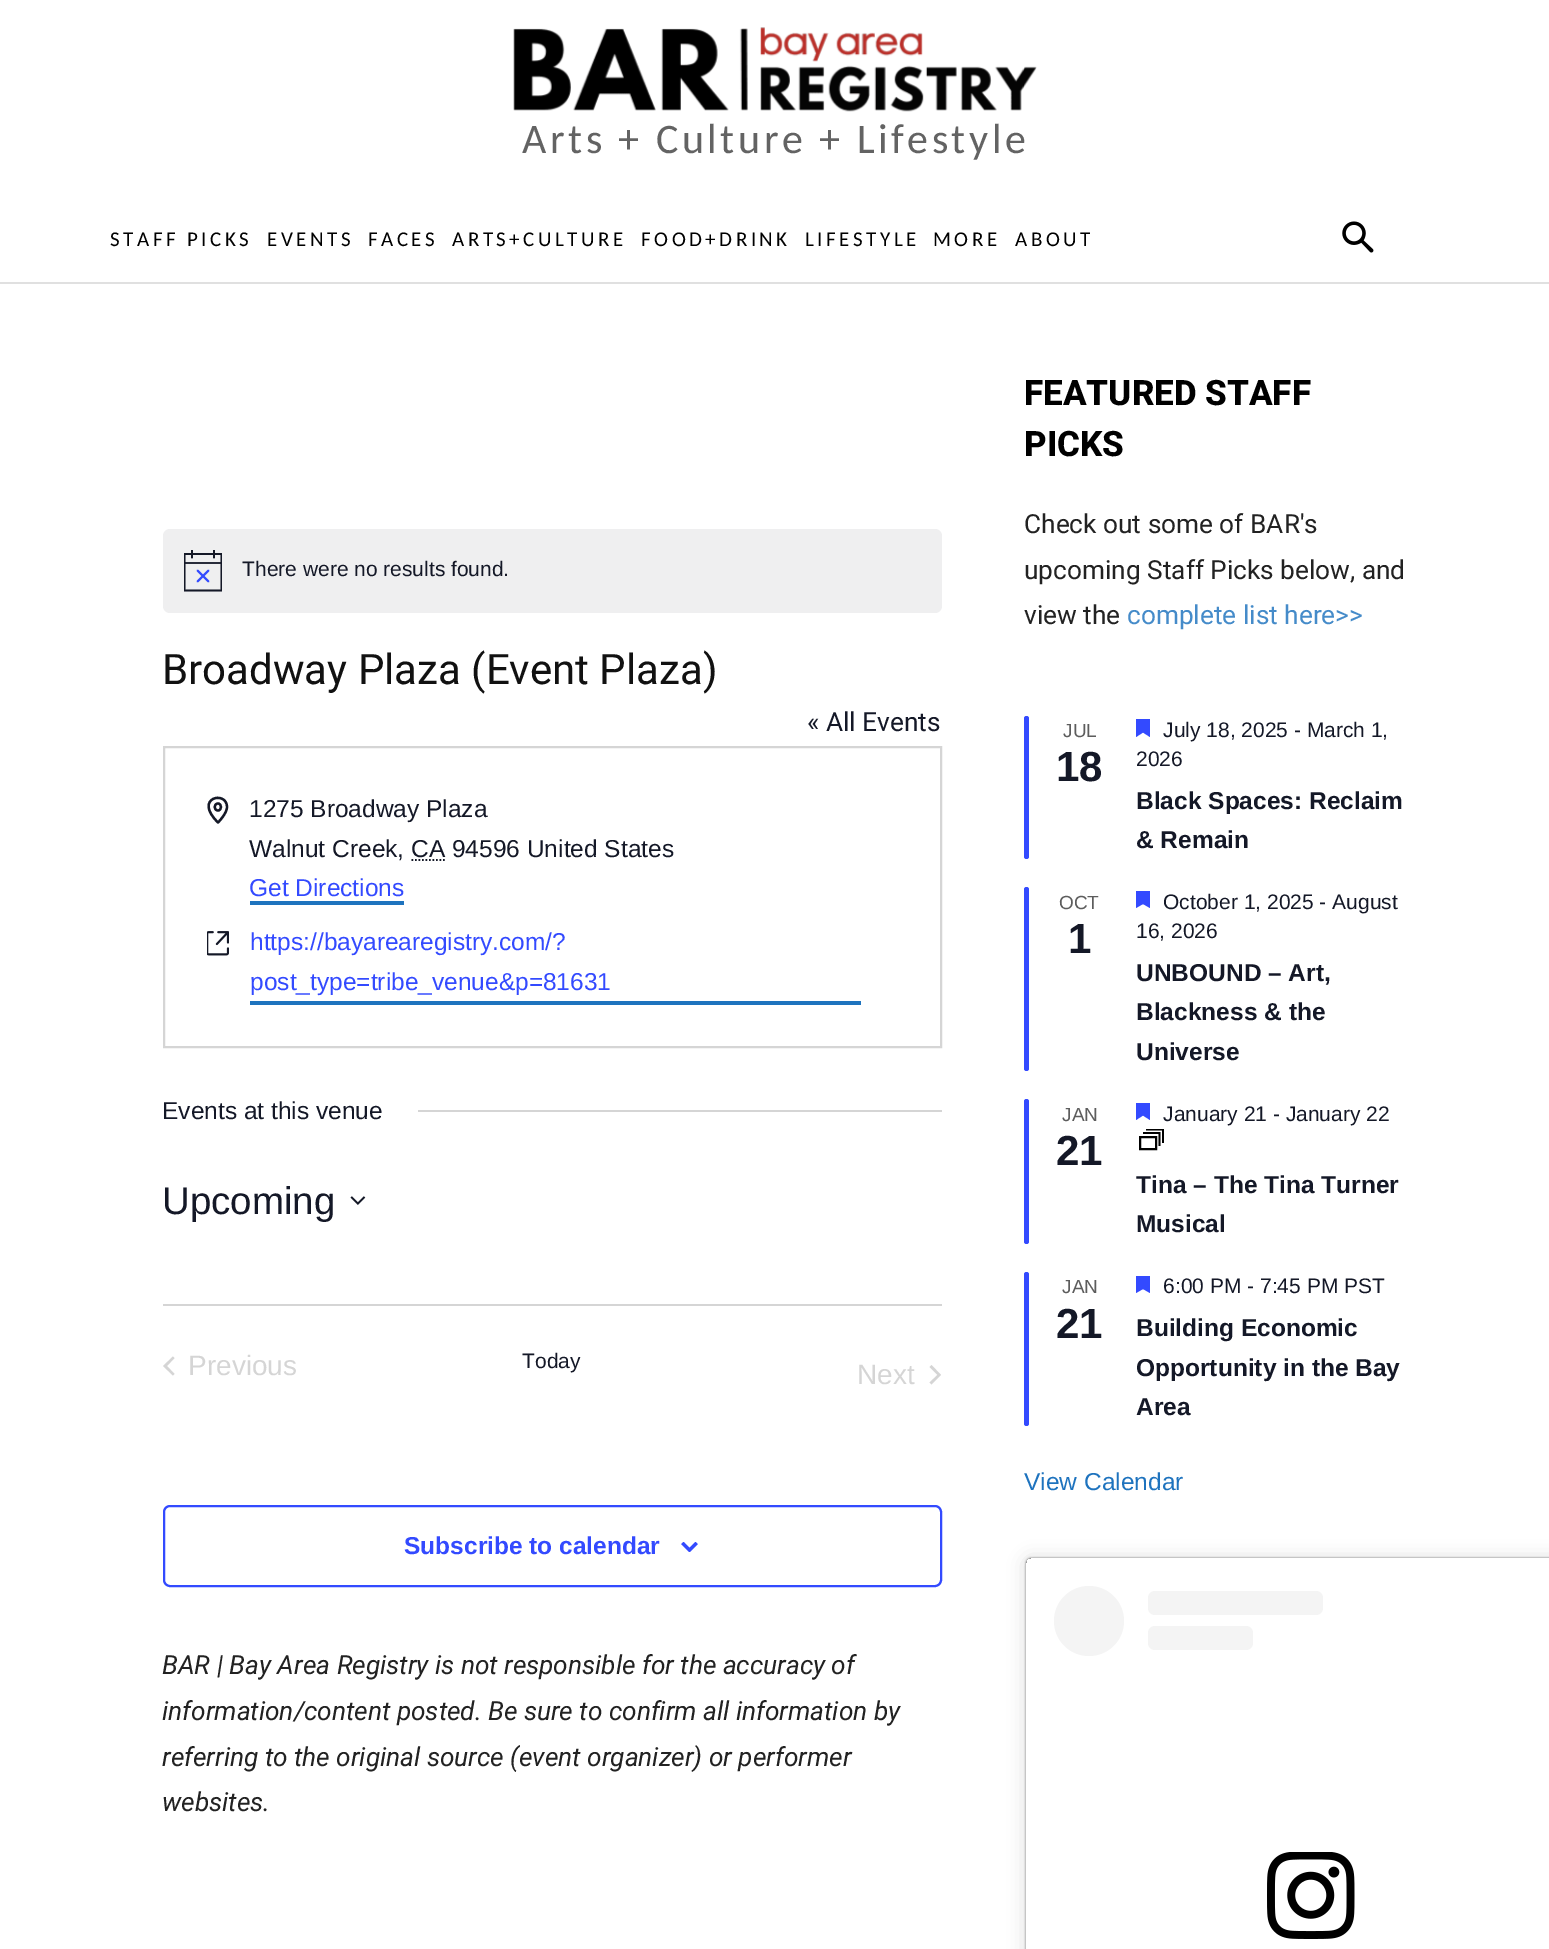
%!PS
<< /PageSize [1549 1949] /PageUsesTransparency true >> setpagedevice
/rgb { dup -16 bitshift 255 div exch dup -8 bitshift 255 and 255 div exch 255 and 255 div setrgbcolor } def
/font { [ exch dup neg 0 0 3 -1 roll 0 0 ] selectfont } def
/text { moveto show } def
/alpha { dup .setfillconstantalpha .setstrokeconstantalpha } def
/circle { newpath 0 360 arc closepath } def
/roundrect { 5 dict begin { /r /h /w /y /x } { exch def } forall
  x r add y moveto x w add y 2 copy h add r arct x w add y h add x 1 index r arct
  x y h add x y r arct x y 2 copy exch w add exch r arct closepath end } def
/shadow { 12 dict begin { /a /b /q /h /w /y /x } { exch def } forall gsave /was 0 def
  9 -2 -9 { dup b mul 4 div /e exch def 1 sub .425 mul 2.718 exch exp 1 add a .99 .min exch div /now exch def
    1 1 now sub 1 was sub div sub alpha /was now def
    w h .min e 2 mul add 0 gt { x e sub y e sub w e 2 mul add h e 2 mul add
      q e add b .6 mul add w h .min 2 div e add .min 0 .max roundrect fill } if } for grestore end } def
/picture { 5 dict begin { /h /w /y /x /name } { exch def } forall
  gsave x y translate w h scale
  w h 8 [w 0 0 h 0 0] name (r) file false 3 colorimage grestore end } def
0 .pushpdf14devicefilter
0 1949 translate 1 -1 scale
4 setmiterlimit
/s1 { /LiberationSans-Regular 21 font 16#141827 rgb } def
/s2 { /Roboto-Regular 42 font 16#111111 rgb } def
/s3 { /Roboto-Regular 26.25 font 16#141827 rgb } def
/s4 { /LiberationSans-Regular 24.5 font 16#141827 rgb } def
/s5 { /LiberationSans-Regular 24.5 font 16#334AFF rgb } def
/s6 { /LiberationSans-Regular 38.5 font 16#141827 rgb } def
/s7 { /LiberationSans-Regular 28 font 16#D5D5D5 rgb } def
/s8 { /LiberationSans-Bold 24.5 font 16#334AFF rgb } def
/s9 { /Roboto-Italic 26.25 font 16#222222 rgb } def
/s10 { /Roboto-ExtraBold 35 font 16#000000 rgb } def
/s11 { /Roboto-Regular 26.25 font 16#222222 rgb } def
/s12 { /Roboto-Regular 26.25 font 16#458BC9 rgb } def
/s13 { /LiberationSans-Regular 19 font 16#5D5D5D rgb } def
/s14 { /LiberationSans-Bold 42 font 16#141827 rgb } def
/s15 { /LiberationSans-Bold 24.5 font 16#141827 rgb } def
/s16 { /LiberationSans-Regular 24.5 font 16#1E73BE rgb } def
16#FFFFFF rgb
0 0 1549 1949 rectfill
(pic1.raw) 513 27 524 85 picture
/Carlito-Regular 42 font
16#636363 rgb
522 153 moveto 3.5 0 (Arts + Culture + Lifestyle) ashow
/Carlito-Regular 21 font
16#000000 rgb
110 246 moveto 3.5 0 (STAFF PICKS) ashow
267 246 moveto 3.5 0 (EVENTS) ashow
368 246 moveto 3.5 0 (FACES) ashow
452 246 moveto 3.5 0 (ARTS+CULTURE) ashow
641 246 moveto 3.5 0 (FOOD+DRINK) ashow
805 246 moveto 3.5 0 (LIFESTYLE) ashow
933 246 moveto 3.5 0 (MORE) ashow
1015 246 moveto 3.5 0 (ABOUT) ashow
(pic2.raw) 1342 221 32 32 picture
16#E0E0E0 rgb
0 282 1549 2 rectfill
16#EFEFF0 rgb
163 529 779 84 7 roundrect fill
gsave
184 550 38 42 rectclip
16#141827 rgb
1.8 setlinewidth
184.5 554 moveto 221.5 554 lineto 221.5 590.5 lineto 184.5 590.5 lineto closepath stroke
grestore
16#334AFF rgb
1.8 setlinewidth
1 setlinecap
197.5 570.5 moveto 208.5 581.5 lineto 208.5 570.5 moveto 197.5 581.5 lineto stroke
gsave
184 550 38 42 rectclip
16#141827 rgb
192 550.5 moveto 192 557.5 lineto 214 550.5 moveto 214 557.5 lineto stroke
grestore
0.9 alpha
16#141827 rgb
184 562 38 2 rectfill
1 alpha
s1
(There were no results found.) 242 576 text
s2
(Broadway Plaza \(Event Plaza\)) 162 684 text
s3
(« All Events) 807 731 text
16#D5D5D5 rgb
2 setlinewidth
0 setlinecap
164 747 777 300 rectstroke
16#141827 rgb
2.3 setlinewidth
1 setlinecap
1 setlinejoin
227 807 moveto 227 813.5 218 822.5 218 822.5 curveto 192.5 797.5 227 790 227 807 curveto closepath 218 810.5 moveto 222 810.5 222 803.5 218 803.5 curveto 213.5 803.5 213.5 810.5 218 810.5 curveto closepath stroke
s4
(1275 Broadway Plaza) 249 817 text
(Walnut Creek, CA 94596 United States) 249 857 text
1.8 setlinewidth
0 setlinecap
0 setlinejoin
[1.75 1.75] 0 setdash
411.5 860 moveto 445.5 860 lineto stroke
s5
(Get Directions) 249 896 text
16#1E73BE rgb
250 901 154 4 rectfill
(pic3.raw) 207 931 22 25 picture
250 1001 611 4 rectfill
s5
(https://bayarearegistry.com/?) 250 950 text
(post_type=tribe_venue&p=81631) 250 990 text
s4
(Events at this venue) 162 1119 text
16#D5D5D5 rgb
418 1110 524 2 rectfill
s6
(Upcoming) 162 1214 text
(pic4.raw) 350 1196 16 9 picture
16#D5D5D5 rgb
163 1304 779 2 rectfill
174.5 1374 moveto 173 1375.5 lineto 163 1366 lineto 173 1356.5 lineto 174.5 1358 lineto 167 1366 lineto closepath fill
s7
(Previous) 188 1375 text
s1
(Today) 522 1368 text
s7
(Next) 857 1384 text
929.5 1367 moveto 931.5 1365 lineto 941 1375 lineto 931.5 1384.5 lineto 929.5 1382.5 lineto 937.5 1375 lineto closepath fill
16#334AFF rgb
2 setlinewidth
[] 0 setdash
164 1506 777 80 6 roundrect stroke
s8
(Subscribe to calendar) 404 1554 text
(pic5.raw) 681 1542 17 10 picture
s9
(BAR | Bay Area Registry is not responsible for the accuracy of) 162 1674 text
(information/content posted. Be sure to confirm all information by) 162 1720 text
(referring to the original source \(event organizer\) or performer) 162 1766 text
(websites.) 162 1811 text
s10
(FEATURED STAFF) 1024 405 text
(PICKS) 1024 456 text
s11
(Check out some of BAR's) 1024 533 text
(upcoming Staff Picks below, and) 1024 579 text
(view the) 1024 624 text
s12
(complete list here>>) 1127 624 text
16#334AFF rgb
1024 716 5 143 2.5 roundrect fill
s13
(JUL) 1063 737 text
s14
(18) 1056 781 text
16#334AFF rgb
1136 719 moveto 1150 719 lineto 1150 737 lineto 1143 732.5 lineto 1136 737 lineto closepath eofill
s1
(July 18, 2025 - March 1,) 1163 737 text
(2026) 1136 766 text
s15
(Black Spaces: Reclaim) 1136 809 text
(& Remain) 1136 848 text
16#334AFF rgb
1024 887 5 184 2.5 roundrect fill
s13
(OCT) 1059 909 text
s14
(1) 1068 953 text
16#334AFF rgb
1136 891 moveto 1150 891 lineto 1150 908 lineto 1143 904 lineto 1136 908 lineto closepath eofill
s1
(October 1, 2025 - August) 1163 909 text
(16, 2026) 1136 938 text
s15
(UNBOUND – Art,) 1136 981 text
(Blackness & the) 1136 1020 text
(Universe) 1136 1060 text
16#334AFF rgb
1024 1099 5 145 2.5 roundrect fill
s13
(JAN) 1062 1121 text
s14
(21) 1056 1165 text
gsave
1136 1103 14 17 rectclip
16#334AFF rgb
1136 1102.5 moveto 1150 1102.5 lineto 1150 1120 lineto 1143 1115.5 lineto 1136 1120 lineto closepath eofill
grestore
s1
(January 21 - January 22) 1163 1121 text
16#000000 rgb
1140 1137 16 12 rectstroke
1.8 setlinewidth
1143 1133 moveto 1159.5 1133 lineto 1159.5 1146 lineto stroke
gsave
1139 1129 25 21 rectclip
1146 1129.5 moveto 1163 1129.5 lineto 1163 1143 lineto stroke
grestore
s15
(Tina – The Tina Turner) 1136 1193 text
(Musical) 1136 1232 text
16#334AFF rgb
1024 1272 5 154 2.5 roundrect fill
s13
(JAN) 1062 1293 text
s14
(21) 1056 1338 text
16#334AFF rgb
1136 1276 moveto 1150 1276 lineto 1150 1293 lineto 1143 1289 lineto 1136 1293 lineto closepath eofill
s1
(6:00 PM - 7:45 PM PST) 1163 1293 text
s15
(Building Economic) 1136 1336 text
(Opportunity in the Bay) 1136 1376 text
(Area) 1136 1415 text
s16
(View Calendar) 1024 1490 text
gsave
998 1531 moveto 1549 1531 lineto 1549 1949 lineto 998 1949 lineto closepath 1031 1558 moveto 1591 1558 lineto 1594 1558 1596 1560 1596 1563 curveto 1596 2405 lineto 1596 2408 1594 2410 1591 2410 curveto 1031 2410 lineto 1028 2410 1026 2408 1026 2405 curveto 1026 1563 lineto 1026 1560 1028 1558 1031 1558 curveto closepath eoclip newpath
16#000000 rgb
1026 1559 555 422 5 9 0.15 shadow
grestore
gsave
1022 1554 moveto 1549 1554 lineto 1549 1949 lineto 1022 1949 lineto closepath 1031 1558 moveto 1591 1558 lineto 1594 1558 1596 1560 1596 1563 curveto 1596 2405 lineto 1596 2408 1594 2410 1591 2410 curveto 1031 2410 lineto 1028 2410 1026 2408 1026 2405 curveto 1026 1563 lineto 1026 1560 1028 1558 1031 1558 curveto closepath eoclip newpath
16#000000 rgb
1026 1558 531 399 5 1 0.5 shadow
grestore
16#F4F4F4 rgb
1089 1621 35 circle fill
1148 1591 175 24 7 roundrect fill
1148 1626 105 24 7 roundrect fill
(pic6.raw) 1267 1852 88 87 picture
.poppdf14devicefilter showpage
